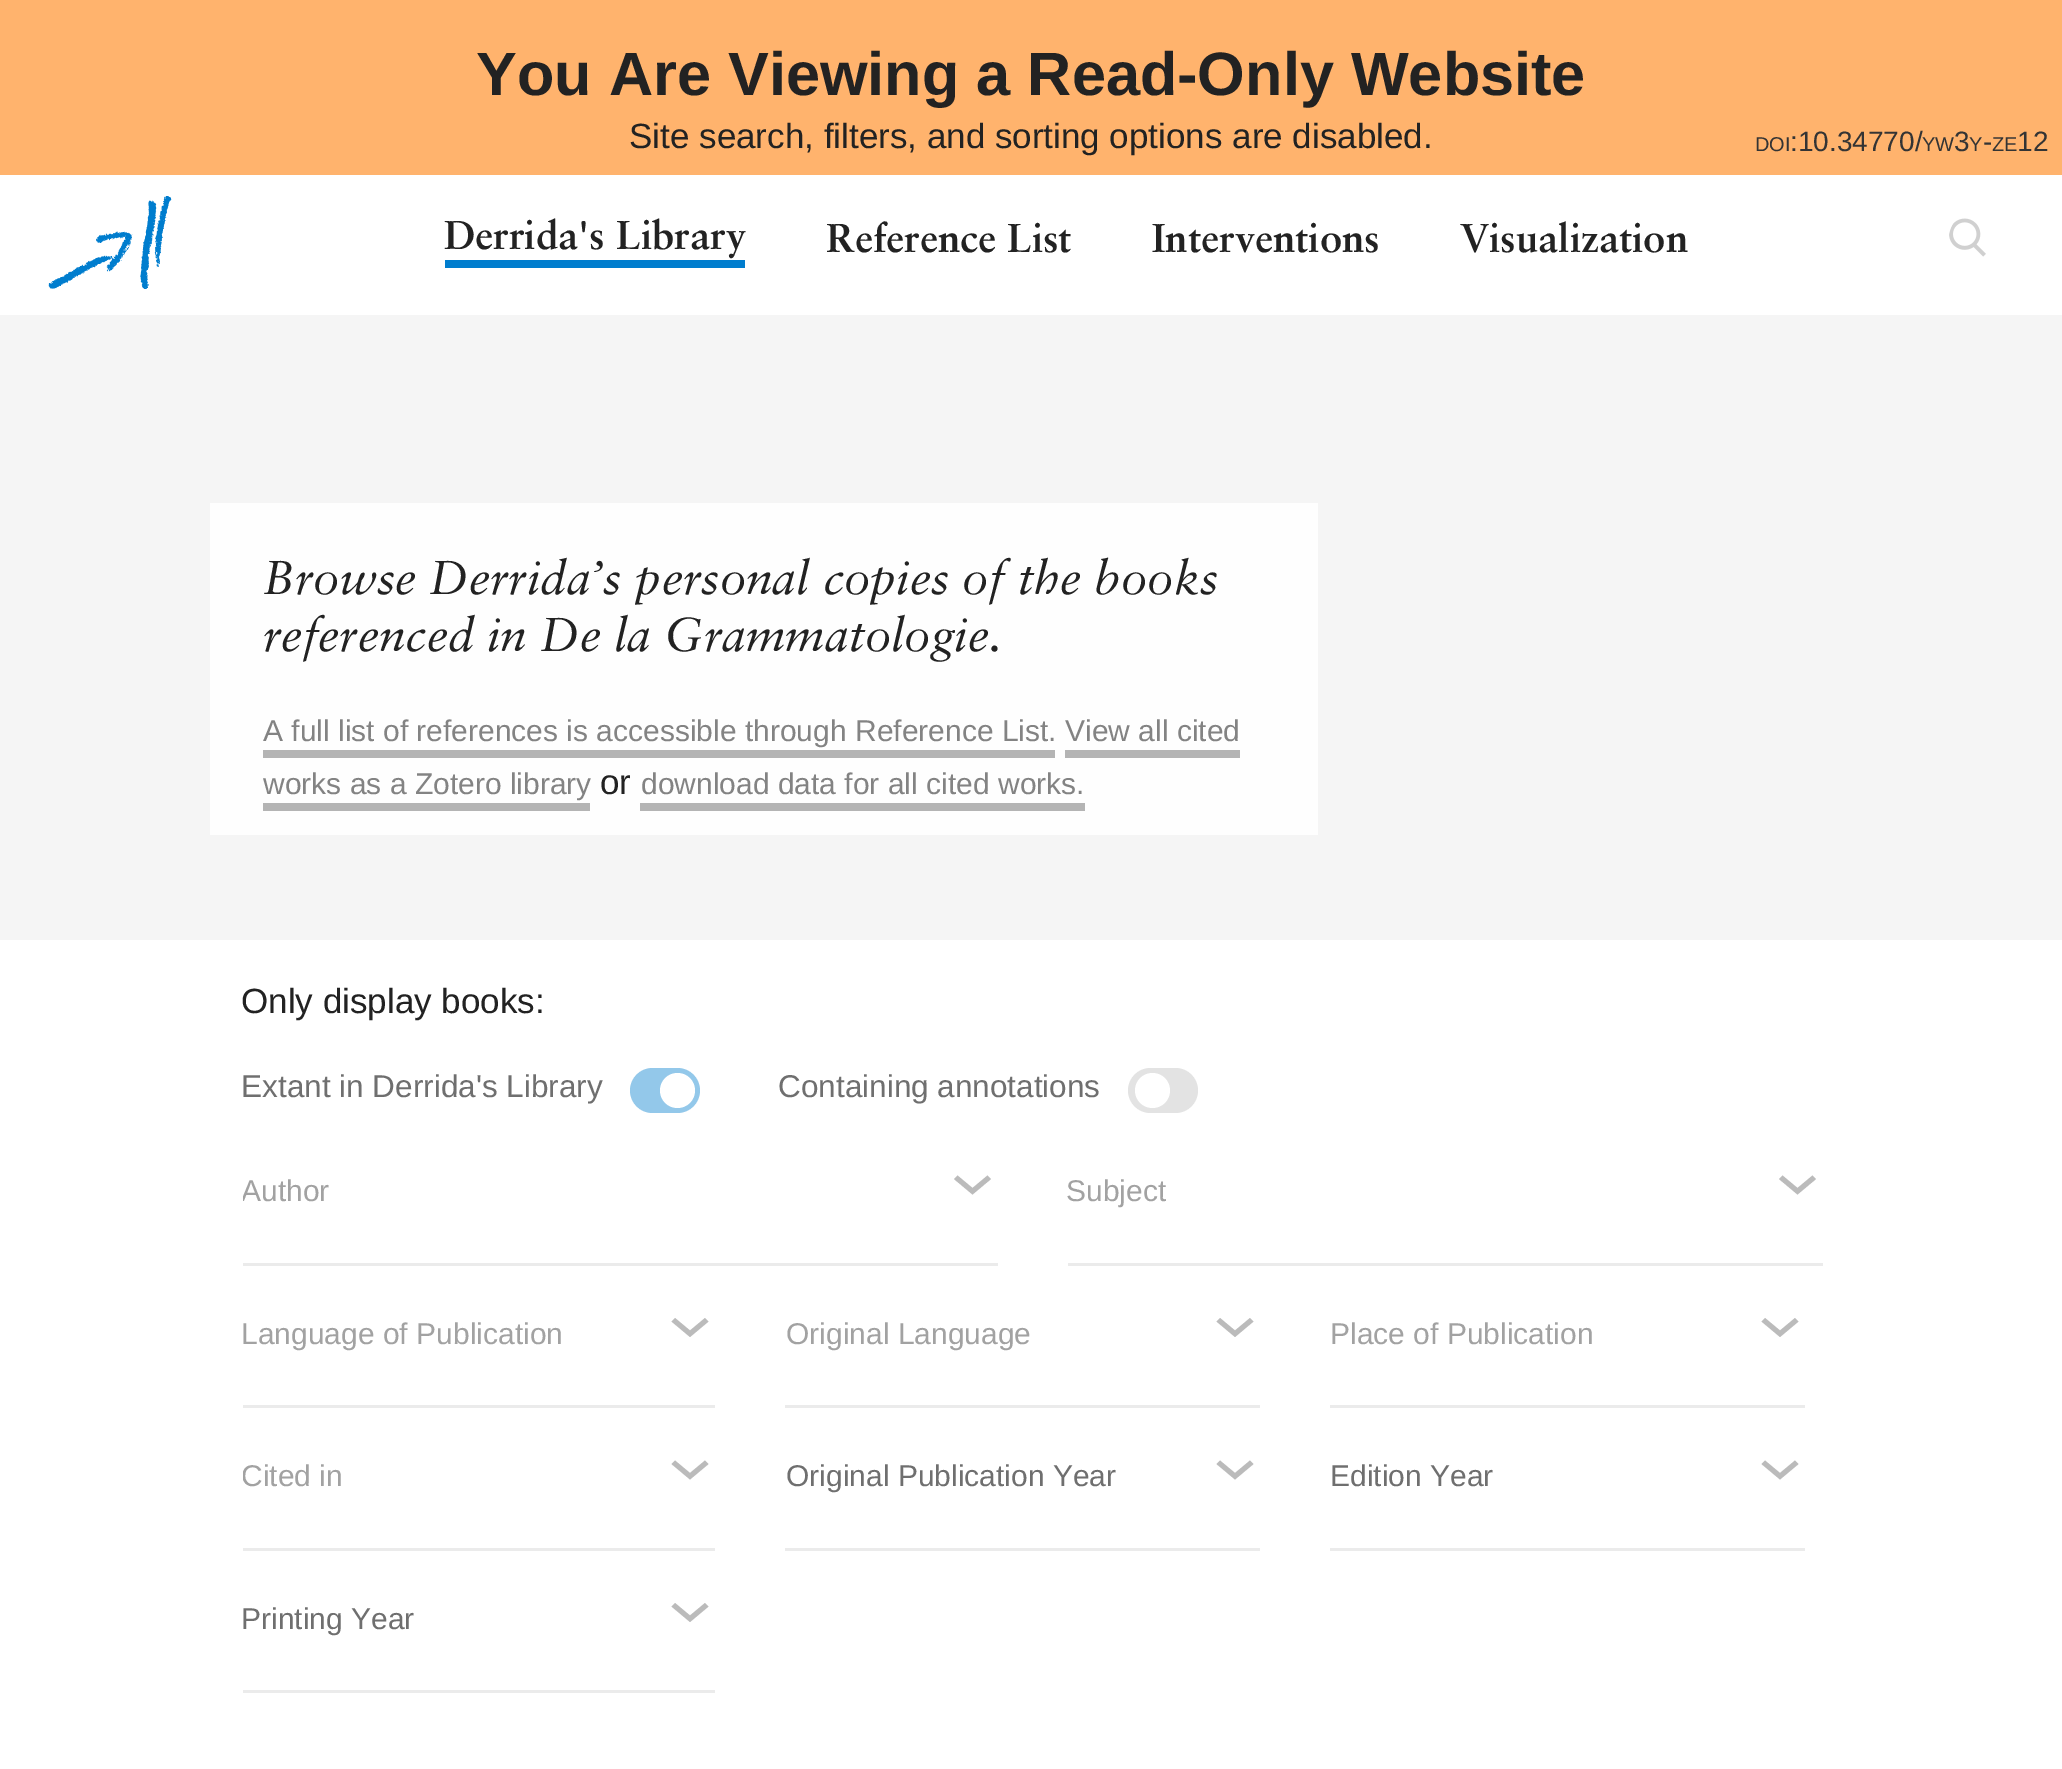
%!PS
<< /PageSize [2062 1769] >> setpagedevice
/rgb { dup -16 bitshift 255 div exch dup -8 bitshift 255 and 255 div exch 255 and 255 div setrgbcolor } def
/font { [ exch dup neg 0 0 3 -1 roll 0 0 ] selectfont } def
/text { moveto show } def
/circle { newpath 0 360 arc closepath } def
/roundrect { 5 dict begin { /r /h /w /y /x } { exch def } forall
  x r add y moveto x w add y 2 copy h add r arct x w add y h add x 1 index r arct
  x y h add x y r arct x y 2 copy exch w add exch r arct closepath end } def
/picture { 5 dict begin { /h /w /y /x /name } { exch def } forall
  gsave x y translate w h scale
  w h 8 [w 0 0 h 0 0] name (r) file false 3 colorimage grestore end } def
0 1769 translate 1 -1 scale
4 setmiterlimit
/s1 { /LiberationSans-Bold 61.25 font 16#222222 rgb } def
/s2 { /LiberationSans-Regular 35 font 16#222222 rgb } def
/s3 { /LiberationSans-Regular 20 font 16#343434 rgb } def
/s4 { /LiberationSans-Regular 28 font 16#343434 rgb } def
/s5 { /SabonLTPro-Bold 40.25 font 16#222222 rgb } def
/s6 { /SabonLTPro-Italic 47.5 font 16#222222 rgb } def
/s7 { /LiberationSans-Regular 30 font 16#838383 rgb } def
/s8 { /LiberationSans-Regular 31.5 font 16#6F6F6F rgb } def
/s9 { /LiberationSans-Regular 30 font 16#A2A2A2 rgb } def
/s10 { /LiberationSans-Regular 30 font 16#6F6F6F rgb } def
16#F5F5F5 rgb
0 0 2062 1769 rectfill
16#FFB36D rgb
0 0 2062 175 rectfill
s1
(You Are Viewing a Read-Only Website) 476 95 text
s2
(Site search, filters, and sorting options are disabled.) 629 148 text
s3
(DOI) 1755 151 text
s4
(:10.34770/) 1790 151 text
s3
(YW) 1922 151 text
s4
(3) 1954 151 text
s3
(Y) 1969 151 text
s4
(-) 1983 151 text
s3
(ZE) 1992 151 text
s4
(12) 2017 151 text
16#FFFFFF rgb
0 175 2062 140 rectfill
(pic1.raw) 48 196 124 93 picture
16#007DCE rgb
445 260 300 8 rectfill
s5
(Derrida's Library) 444 249 text
(Reference List) 826 252 text
(Interventions) 1152 252 text
(Visualization) 1460 252 text
(pic2.raw) 1949 218 37 39 picture
16#FEFEFE rgb
210 503 1108 332 rectfill
s6
(Browse Derrida’s personal copies of the books) 263 594 text
(referenced in De la Grammatologie.) 263 651 text
s7
(A full list of references is accessible through Reference List.) 263 741 text
16#B4B4B4 rgb
263 750 792 8 rectfill
s7
(View all cited) 1065 741 text
16#B4B4B4 rgb
1065 750 175 8 rectfill
s7
(works as a Zotero library) 263 794 text
16#B4B4B4 rgb
263 803 327 8 rectfill
s2
(or) 600 794 text
s7
(download data for all cited works.) 641 794 text
16#B4B4B4 rgb
640 803 445 8 rectfill
16#FFFFFF rgb
0 940 2062 829 rectfill
s2
(Only display books:) 241 1013 text
s8
(Extant in Derrida's Library) 241 1097 text
16#93C8EA rgb
630 1068 70 45 22.5 roundrect fill
16#FFFFFF rgb
677.5 1090.5 17.5 circle fill
s8
(Containing annotations) 778 1097 text
16#E3E3E3 rgb
1128 1068 70 45 22.5 roundrect fill
16#FFFFFF rgb
1152.5 1090.5 17.5 circle fill
gsave
243 1170 755 133 rectclip
s9
(Author) 241 1201 text
grestore
16#BBBBBB rgb
972.5 1194.5 moveto 954 1179 lineto 957.5 1175.5 lineto 972.5 1188 lineto 987.5 1175.5 lineto 991 1179 lineto closepath fill
16#EBEBEB rgb
243 1263 755 3 rectfill
s9
(Subject) 1066 1201 text
16#BBBBBB rgb
1797.5 1194.5 moveto 1779 1179 lineto 1782.5 1175.5 lineto 1797.5 1188 lineto 1812.5 1175.5 lineto 1816 1179 lineto closepath fill
16#EBEBEB rgb
1068 1263 755 3 rectfill
s9
(Language of Publication) 241 1344 text
16#BBBBBB rgb
690 1337 moveto 671.5 1321.5 lineto 675 1318 lineto 690 1330.5 lineto 705 1318 lineto 708.5 1321.5 lineto closepath fill
16#EBEBEB rgb
243 1405 472 3 rectfill
s9
(Original Language) 786 1344 text
16#BBBBBB rgb
1235 1337 moveto 1216.5 1321.5 lineto 1220 1318 lineto 1235 1330.5 lineto 1250 1318 lineto 1253.5 1321.5 lineto closepath fill
16#EBEBEB rgb
785 1405 475 3 rectfill
s9
(Place of Publication) 1330 1344 text
16#BBBBBB rgb
1780 1337 moveto 1761.5 1321.5 lineto 1765 1318 lineto 1780 1330.5 lineto 1795 1318 lineto 1798.5 1321.5 lineto closepath fill
16#EBEBEB rgb
1330 1405 475 3 rectfill
gsave
243 1455 472 133 rectclip
s9
(Cited in) 241 1486 text
grestore
16#BBBBBB rgb
690 1479.5 moveto 671.5 1464 lineto 675 1460.5 lineto 690 1473 lineto 705 1460.5 lineto 708.5 1464 lineto closepath fill
16#EBEBEB rgb
243 1548 472 3 rectfill
s10
(Original Publication Year) 786 1486 text
16#BBBBBB rgb
1235 1479.5 moveto 1216.5 1464 lineto 1220 1460.5 lineto 1235 1473 lineto 1250 1460.5 lineto 1253.5 1464 lineto closepath fill
16#EBEBEB rgb
785 1548 475 3 rectfill
s10
(Edition Year) 1330 1486 text
16#BBBBBB rgb
1780 1479.5 moveto 1761.5 1464 lineto 1765 1460.5 lineto 1780 1473 lineto 1795 1460.5 lineto 1798.5 1464 lineto closepath fill
16#EBEBEB rgb
1330 1548 475 3 rectfill
s10
(Printing Year) 241 1629 text
16#BBBBBB rgb
690 1622 moveto 671.5 1606.5 lineto 675 1603 lineto 690 1615.5 lineto 705 1603 lineto 708.5 1606.5 lineto closepath fill
16#EBEBEB rgb
243 1690 472 3 rectfill
showpage
